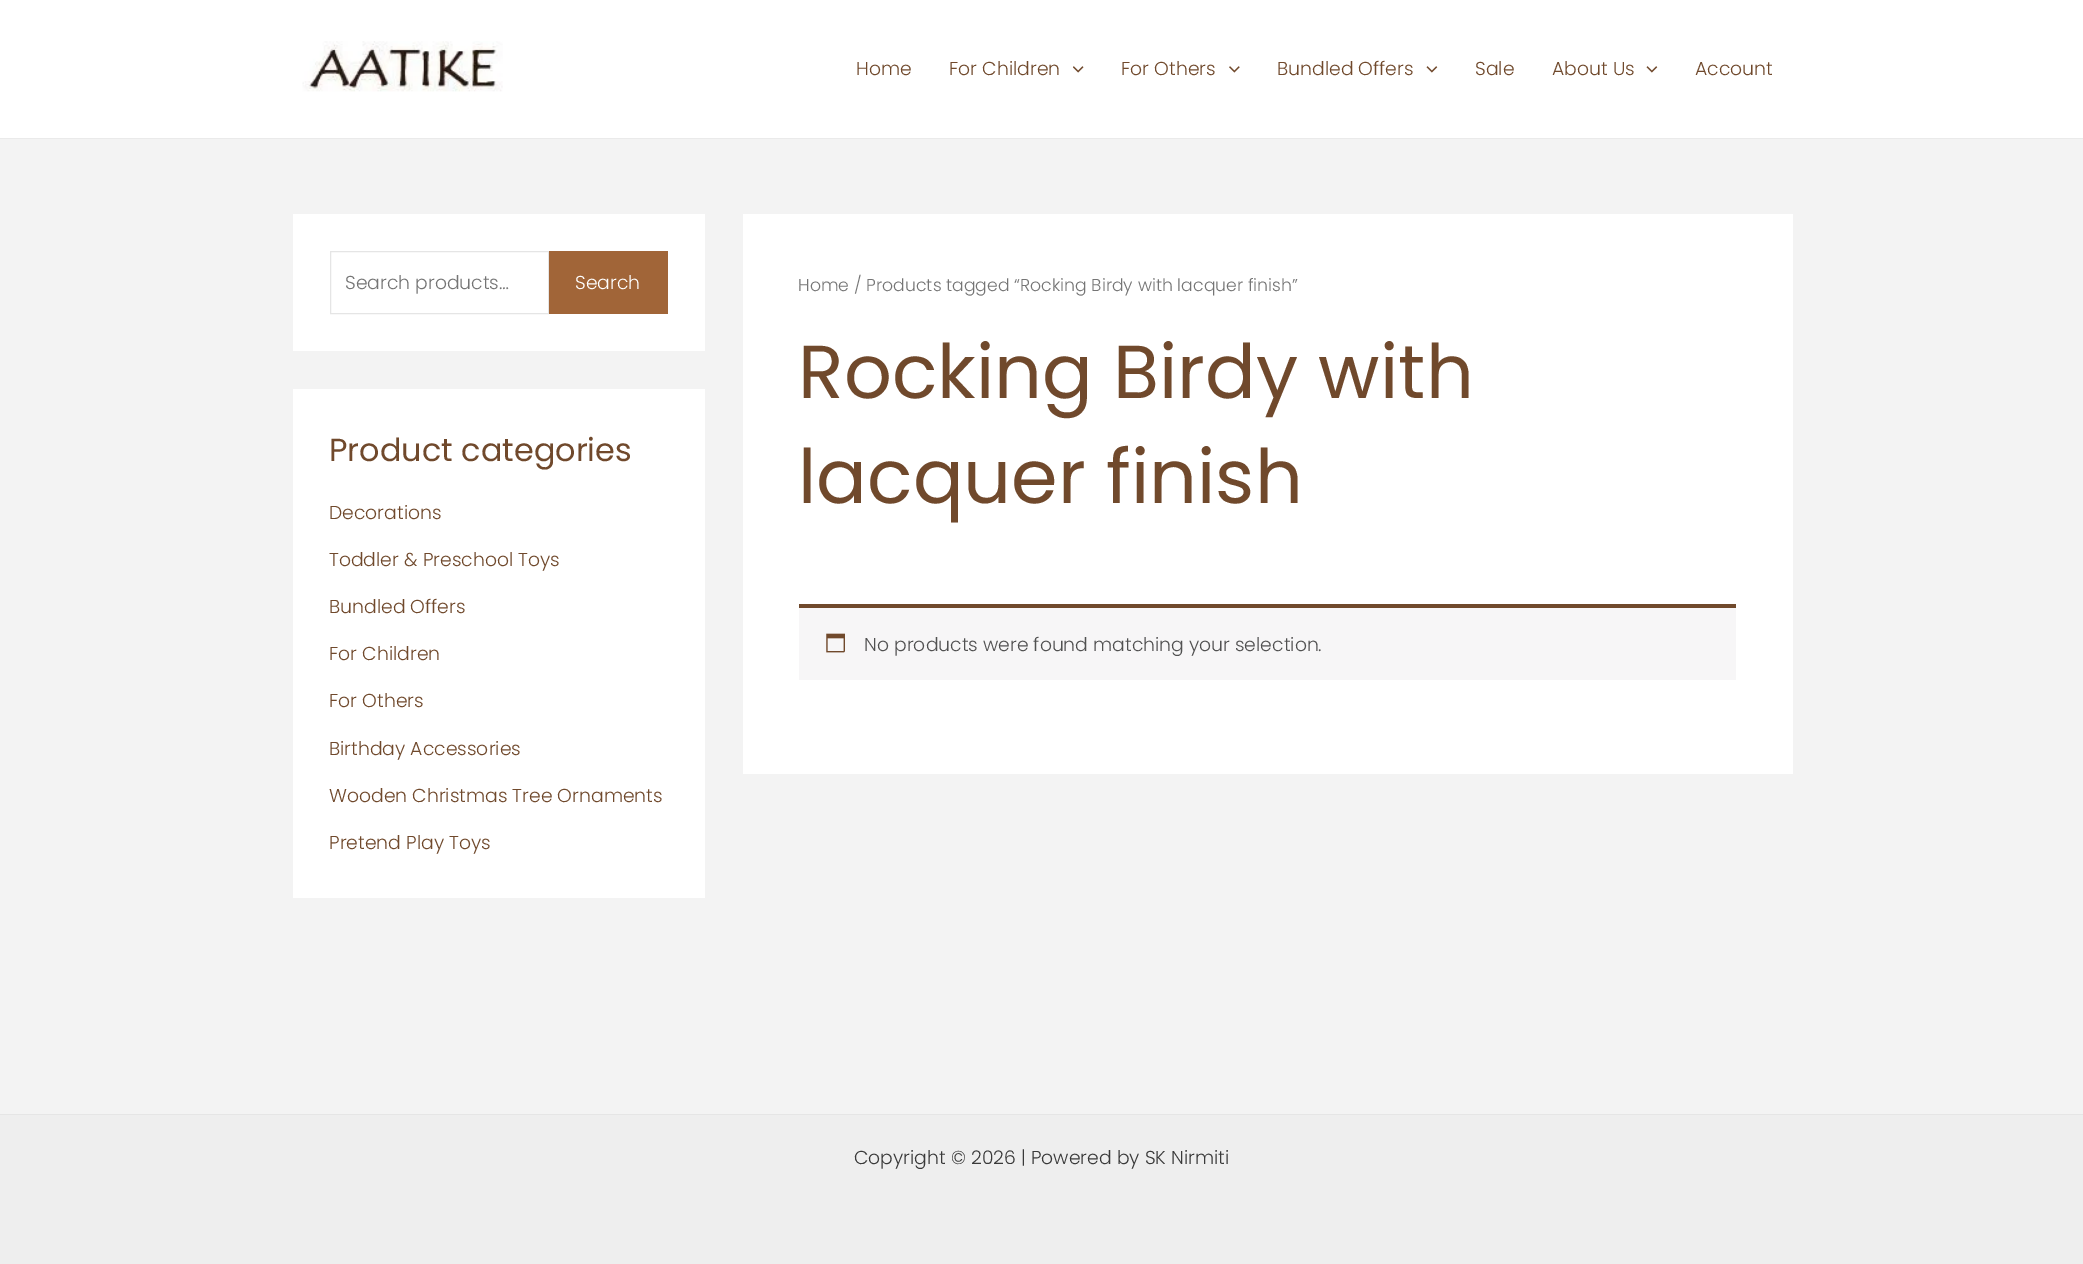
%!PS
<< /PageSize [2083 1264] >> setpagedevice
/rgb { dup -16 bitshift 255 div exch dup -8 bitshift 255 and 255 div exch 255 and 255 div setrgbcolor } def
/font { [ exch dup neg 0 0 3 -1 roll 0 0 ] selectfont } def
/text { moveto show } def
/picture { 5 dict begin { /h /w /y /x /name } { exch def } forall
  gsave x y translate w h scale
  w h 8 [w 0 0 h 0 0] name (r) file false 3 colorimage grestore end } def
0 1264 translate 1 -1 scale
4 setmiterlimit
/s1 { /Poppins-Light 18.75 font 16#70492C rgb } def
/s2 { /Poppins-Light 18.75 font 16#757575 rgb } def
/s3 { /Poppins-Light 18.75 font 16#FFFFFF rgb } def
/s4 { /Poppins-Regular 31.9 font 16#70492C rgb } def
/s5 { /Poppins-Light 17.25 font 16#757575 rgb } def
/s6 { /Poppins-Regular 75 font 16#70492C rgb } def
/s7 { /Poppins-Light 18.75 font 16#515151 rgb } def
/s8 { /Poppins-Light 18.75 font 16#3A3A3A rgb } def
16#F3F3F3 rgb
0 0 2083 1264 rectfill
16#FFFFFF rgb
0 0 2083 138 rectfill
16#EAEAEA rgb
0 138 2083 1 rectfill
(pic1.raw) 302 41 201 51 picture
s1
(Home) 856 75 text
(For Children) 949 75 text
(pic2.raw) 1073 66 11 7 picture
(For Others) 1121 75 text
(pic3.raw) 1229 66 11 7 picture
(Bundled Offers) 1277 75 text
(pic4.raw) 1426 66 12 7 picture
(Sale) 1475 75 text
(About Us) 1552 75 text
(pic4.raw) 1646 66 12 7 picture
(Account) 1695 75 text
16#FFFFFF rgb
293 214 412 137 rectfill
16#E5E5E5 rgb
330.5 251.5 218 62 rectstroke
s2
(Search products…) 345 289 text
16#A16538 rgb
549 251 119 63 rectfill
s3
(Search) 575 289 text
293 389 412 509 rectfill
s4
(Product categories) 329 461 text
s1
(Decorations) 329 519 text
(Toddler & Preschool Toys) 329 566 text
(Bundled Offers) 329 613 text
(For Children) 329 660 text
(For Others) 329 707 text
(Birthday Accessories) 329 755 text
(Wooden Christmas Tree Ornaments) 329 802 text
(Pretend Play Toys) 329 849 text
16#FFFFFF rgb
743 214 1050 560 rectfill
s5
(Home / Products tagged “Rocking Birdy with lacquer finish”) 798 291 text
s6
(Rocking Birdy with) 798 398 text
(lacquer finish) 798 503 text
16#F7F6F7 rgb
799 608 937 72 rectfill
16#70492C rgb
799 604 937 4 rectfill
(pic5.raw) 826 633 19 20 picture
s7
(No products were found matching your selection.) 864 651 text
16#EEEEEE rgb
0 1115 2083 149 rectfill
16#E5E5E5 rgb
0 1114 2083 1 rectfill
s8
(Copyright © 2026 | Powered by SK Nirmiti) 854 1164 text
showpage
